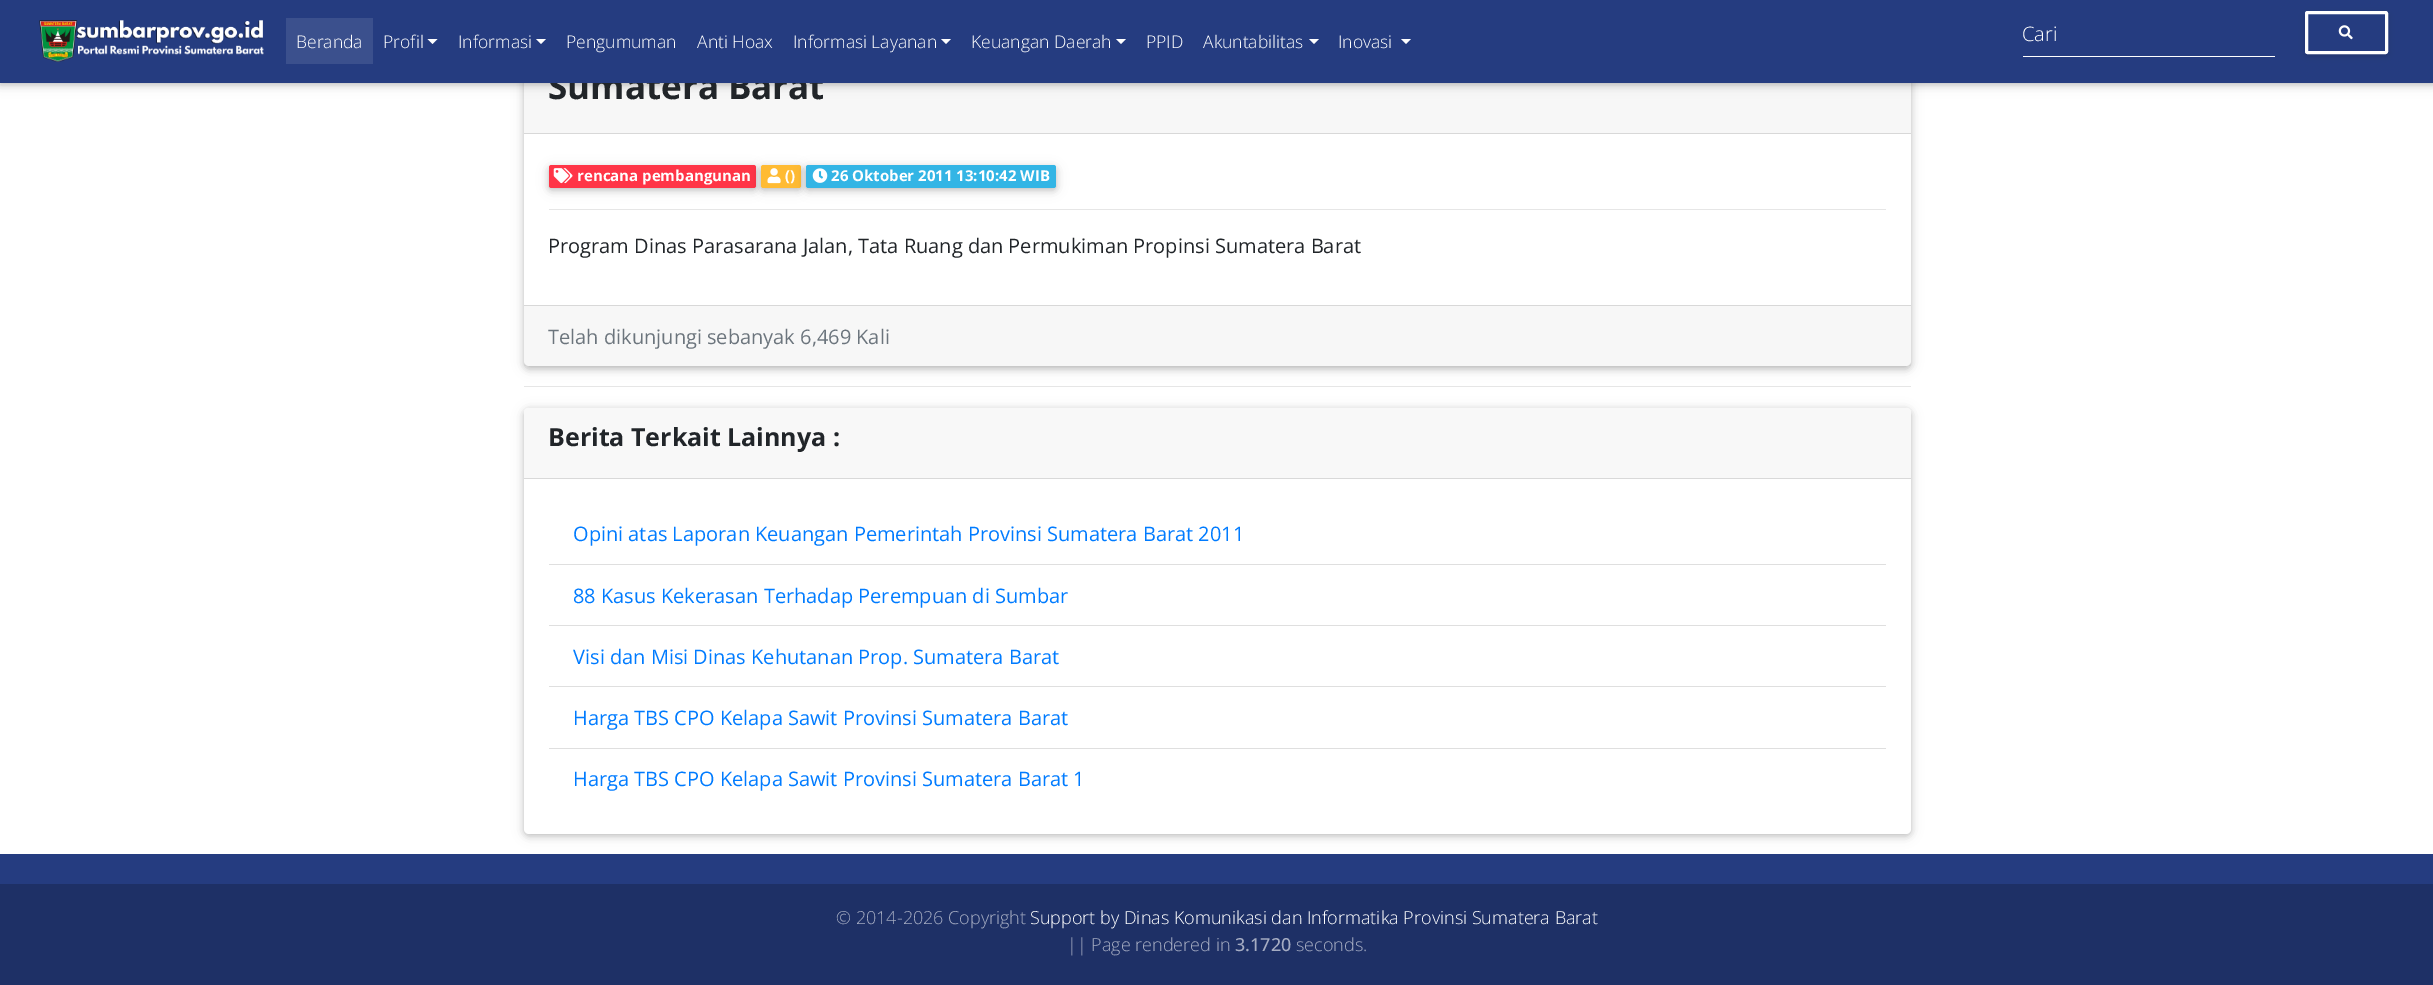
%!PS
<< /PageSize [2433 985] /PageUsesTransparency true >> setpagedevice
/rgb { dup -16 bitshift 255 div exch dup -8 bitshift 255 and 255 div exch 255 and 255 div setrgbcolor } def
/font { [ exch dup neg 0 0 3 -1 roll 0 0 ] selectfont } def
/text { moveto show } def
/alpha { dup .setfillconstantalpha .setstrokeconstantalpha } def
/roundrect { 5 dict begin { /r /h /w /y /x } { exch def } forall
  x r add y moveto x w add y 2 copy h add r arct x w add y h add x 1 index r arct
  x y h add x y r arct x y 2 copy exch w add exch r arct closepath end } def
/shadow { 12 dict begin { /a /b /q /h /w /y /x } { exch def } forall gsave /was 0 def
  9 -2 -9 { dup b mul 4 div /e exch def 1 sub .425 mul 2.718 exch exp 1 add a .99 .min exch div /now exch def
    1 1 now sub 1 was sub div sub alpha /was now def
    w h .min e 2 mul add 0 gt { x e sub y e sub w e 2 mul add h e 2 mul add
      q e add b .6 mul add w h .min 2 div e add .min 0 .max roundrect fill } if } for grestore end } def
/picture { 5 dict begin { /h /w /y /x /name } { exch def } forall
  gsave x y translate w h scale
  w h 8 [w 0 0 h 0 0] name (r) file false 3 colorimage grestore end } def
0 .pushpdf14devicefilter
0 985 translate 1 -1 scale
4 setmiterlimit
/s1 { /OpenSans-Bold 35 font 16#212529 rgb } def
/s2 { /OpenSans-Light 17.5 font 16#FFFFFF rgb } def
/s3 { /OpenSans-Light 20 font 16#FFFFFF rgb } def
/s4 { /OpenSans-Bold 15 font 16#FFFFFF rgb } def
/s5 { /OpenSans-Regular 20 font 16#212529 rgb } def
/s6 { /OpenSans-Regular 20 font 16#6C757D rgb } def
/s7 { /OpenSans-Bold 25 font 16#212529 rgb } def
/s8 { /OpenSans-Regular 20 font 16#007BFF rgb } def
/s9 { /OpenSans-Light 18 font 16#A5ACC2 rgb } def
/s10 { /OpenSans-Light 18 font 16#FFFFFF rgb } def
/s11 { /OpenSans-Medium 18 font 16#A5ACC2 rgb } def
16#FFFFFF rgb
0 0 2433 985 rectfill
16#E6E6E6 rgb
524 386 1387 1 rectfill
16#000000 rgb
524 11 1387 358 5 6 0.12 shadow
524 11 1387 358 5 3 0.16 shadow
16#FFFFFF rgb
524 9 1387 357 5 roundrect fill
0.03 alpha
16#000000 rgb
524 83 1387 50 rectfill
1 alpha
0 3 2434 82 0 6 0.12 shadow
0 3 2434 82 0 3 0.16 shadow
s1
(Sumatera Barat) 548 99 text
16#253C80 rgb
0 0 2433 83 rectfill
(pic1.raw) 39 20 225 42 picture
16#3B508D rgb
286 18 87 46 rectfill
s2
(Beranda) 296 48 text
(Profil) 383 48 text
427.5 39 moveto 437.5 39 lineto 432.5 44 lineto closepath fill
(Informasi) 458 48 text
536 39 moveto 546 39 lineto 541 44 lineto closepath fill
(Pengumuman) 566 48 text
(Anti Hoax) 697 48 text
(Informasi Layanan) 793 48 text
941 39 moveto 951 39 lineto 946 44 lineto closepath fill
(Keuangan Daerah) 971 48 text
1116 39 moveto 1126 39 lineto 1121 44 lineto closepath fill
(PPID) 1146 48 text
(Akuntabilitas) 1203 48 text
1309 39 moveto 1319 39 lineto 1314 44 lineto closepath fill
(Inovasi) 1338 48 text
1401 39 moveto 1411 39 lineto 1406 44 lineto closepath fill
2023 56 252 1 rectfill
s3
(Cari) 2022 41 text
gsave
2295 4 moveto 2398 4 lineto 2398 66 lineto 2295 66 lineto closepath 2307.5 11 moveto 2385.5 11 lineto 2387 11 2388 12 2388 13.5 curveto 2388 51.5 lineto 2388 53 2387 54 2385.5 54 curveto 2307.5 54 lineto 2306 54 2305 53 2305 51.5 curveto 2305 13.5 lineto 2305 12 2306 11 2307.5 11 curveto closepath eoclip newpath
16#000000 rgb
2305 14 83 42 2.5 3 0.16 shadow
grestore
3 setlinewidth
2306.5 12.5 80 40 1 roundrect stroke
(pic2.raw) 2338 25 15 15 picture
16#D8D8D8 rgb
524 133 1387 1 rectfill
16#000000 rgb
549 168 207 22 2.5 6 0.12 shadow
549 168 207 22 2.5 3 0.16 shadow
16#FF3547 rgb
549 165 207 23 2.5 roundrect fill
(pic3.raw) 553 168 20 16 picture
s4
(rencana pembangunan) 577 181 text
16#000000 rgb
761 168 40 22 2.5 6 0.12 shadow
761 168 40 22 2.5 3 0.16 shadow
16#FFBB33 rgb
761 165 40 23 2.5 roundrect fill
(pic4.raw) 767 168 14 16 picture
s4
(\(\)) 785 181 text
16#000000 rgb
806 168 250 22 2.5 6 0.12 shadow
806 168 250 22 2.5 3 0.16 shadow
16#33B5E5 rgb
806 165 250 23 2.5 roundrect fill
(pic5.raw) 812 168 16 15 picture
s4
(26 Oktober 2011 13:10:42 WIB) 831 181 text
16#E6E6E6 rgb
549 209 1337 1 rectfill
s5
(Program Dinas Parasarana Jalan, Tata Ruang dan Permukiman Propinsi Sumatera Barat) 548 253 text
0.03 alpha
16#000000 rgb
524 306 1387 60 rectfill
1 alpha
16#D8D8D8 rgb
524 305 1387 1 rectfill
s6
(Telah dikunjungi sebanyak 6,469 Kali) 548 344 text
16#253C80 rgb
0 854 2433 30 rectfill
16#000000 rgb
524 410 1387 426 5 6 0.12 shadow
524 410 1387 426 5 3 0.16 shadow
16#FFFFFF rgb
524 408 1387 426 5 roundrect fill
16#F8F8F8 rgb
528 408 moveto 1907 408 lineto 1909 408 1911 410 1911 412 curveto 1911 479 lineto 524 479 lineto 524 412 lineto 524 410 526 408 528 408 curveto closepath fill
16#D9D9D9 rgb
524 478 1387 1 rectfill
s7
(Berita Terkait Lainnya :) 548 446 text
16#DFDFDF rgb
549 564 1337 1 rectfill
s8
(Opini atas Laporan Keuangan Pemerintah Provinsi Sumatera Barat 2011) 573 541 text
16#DFDFDF rgb
549 625 1337 1 rectfill
s8
(88 Kasus Kekerasan Terhadap Perempuan di Sumbar) 573 603 text
16#DFDFDF rgb
549 686 1337 1 rectfill
s8
(Visi dan Misi Dinas Kehutanan Prop. Sumatera Barat) 573 664 text
16#DFDFDF rgb
549 748 1337 1 rectfill
s8
(Harga TBS CPO Kelapa Sawit Provinsi Sumatera Barat) 573 725 text
(Harga TBS CPO Kelapa Sawit Provinsi Sumatera Barat 1) 573 786 text
16#1E3066 rgb
0 884 2433 101 rectfill
s9
(© 2014-2026 Copyright) 836 924 text
s10
(Support by Dinas Komunikasi dan Informatika Provinsi Sumatera Barat) 1030 924 text
s9
(|| Page rendered in) 1067 951 text
s11
(3.1720) 1235 951 text
s9
(seconds.) 1296 951 text
.poppdf14devicefilter showpage
